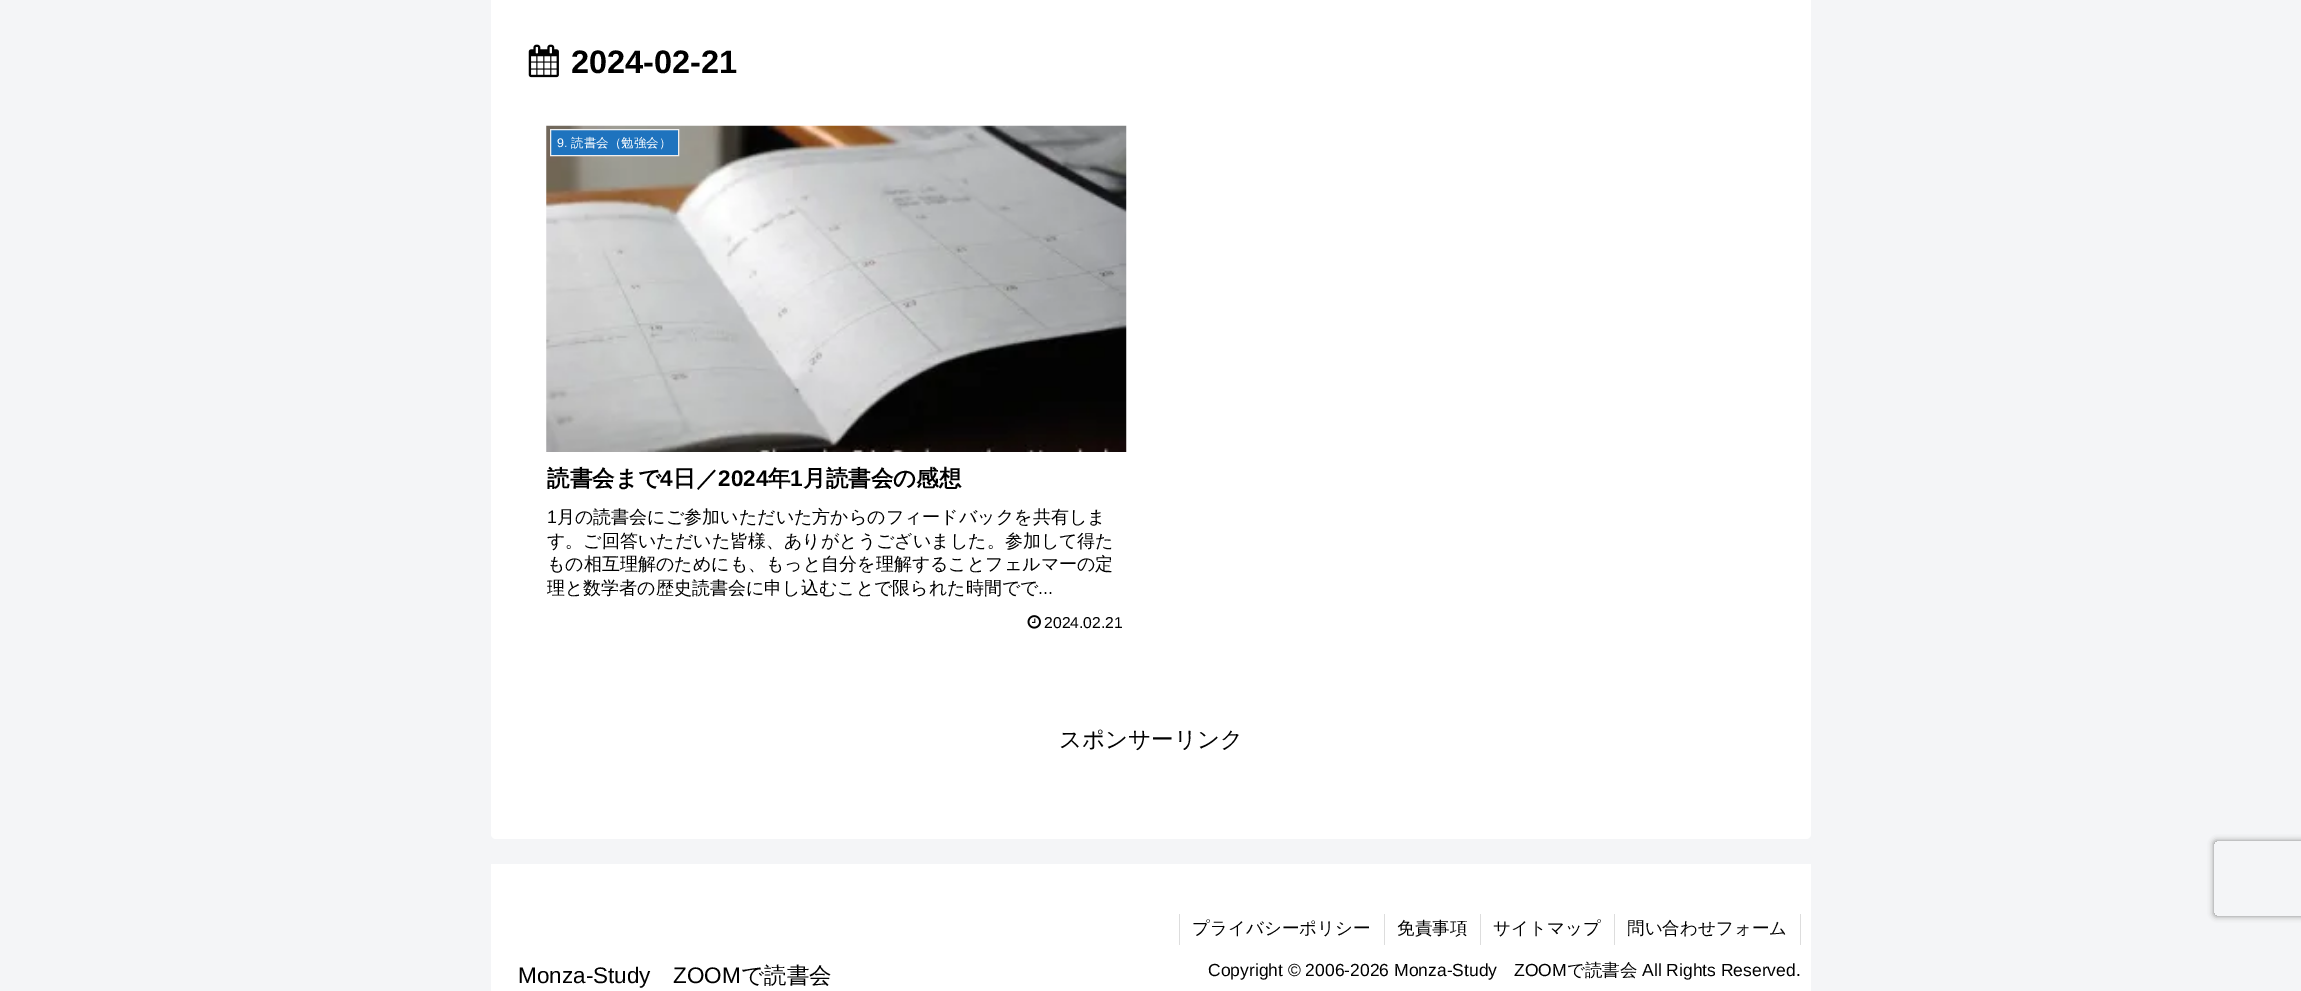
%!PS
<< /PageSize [2301 991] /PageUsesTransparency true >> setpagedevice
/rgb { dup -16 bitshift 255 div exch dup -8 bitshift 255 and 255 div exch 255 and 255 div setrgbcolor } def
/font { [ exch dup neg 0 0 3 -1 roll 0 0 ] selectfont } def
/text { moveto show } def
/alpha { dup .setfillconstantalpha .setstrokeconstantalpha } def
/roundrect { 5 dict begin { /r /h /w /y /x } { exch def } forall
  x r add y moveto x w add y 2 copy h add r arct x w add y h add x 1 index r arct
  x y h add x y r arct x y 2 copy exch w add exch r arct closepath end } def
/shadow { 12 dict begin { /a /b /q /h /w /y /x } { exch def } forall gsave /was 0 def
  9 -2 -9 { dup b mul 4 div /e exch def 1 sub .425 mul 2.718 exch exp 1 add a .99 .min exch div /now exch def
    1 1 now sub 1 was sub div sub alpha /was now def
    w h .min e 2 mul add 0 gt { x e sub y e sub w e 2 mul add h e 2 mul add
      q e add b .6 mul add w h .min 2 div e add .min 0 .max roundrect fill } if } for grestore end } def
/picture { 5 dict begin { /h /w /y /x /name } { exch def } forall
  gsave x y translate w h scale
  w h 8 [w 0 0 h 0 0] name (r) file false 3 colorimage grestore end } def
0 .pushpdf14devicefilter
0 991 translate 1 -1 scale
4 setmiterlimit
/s1 { /LiberationSans-Bold 32.5 font 16#000000 rgb } def
/s2 { /LiberationSans-Regular 12.5 font 16#FFFFFF rgb } def
/s3 { /WenQuanYiZenHei-Medium 12.5 font 16#FFFFFF rgb } def
/s4 { /WenQuanYiZenHei-Bold 22.5 font 16#000000 rgb } def
/s5 { /LiberationSans-Bold 22.5 font 16#000000 rgb } def
/s6 { /LiberationSans-Regular 18 font 16#000000 rgb } def
/s7 { /WenQuanYiZenHei-Medium 18 font 16#000000 rgb } def
/s8 { /LiberationSans-Regular 15.75 font 16#000000 rgb } def
/s9 { /WenQuanYiZenHei-Medium 22.5 font 16#000000 rgb } def
/s10 { /LiberationSans-Regular 22.5 font 16#000000 rgb } def
/s11 { /WenQuanYiZenHei-Medium 17.5 font 16#000000 rgb } def
/s12 { /LiberationSans-Regular 17.5 font 16#000000 rgb } def
16#F4F5F7 rgb
0 0 2301 991 rectfill
16#FFFFFF rgb
491 -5 1320 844 5 roundrect fill
(pic1.raw) 528 44 31 34 picture
s1
(2024-02-21) 571 73 text
(pic2.raw) 546 125 581 327 picture
16#1E73BE rgb
550.5 129.5 moveto 678.5 129.5 lineto 678.5 155.5 lineto 550.5 155.5 lineto closepath gsave fill grestore
16#EEEEEE rgb
stroke
s2
(9.) 557 147 text
s3
(読書会（勉強会）) 571 147 text
s4
(読書会まで) 547 486 text
s5
(4) 660 486 text
s4
(日／) 673 486 text
s5
(2024) 718 486 text
s4
(年) 768 486 text
s5
(1) 790 486 text
s4
(月読書会の感想) 803 486 text
s6
(1) 547 523 text
s7
(月の読書会にご参加いただいた方からのフィードバックを共有しま) 557 523 text
(す。ご回答いただいた皆様、ありがとうございました。参加して得た) 547 547 text
(もの相互理解のためにも、もっと自分を理解することフェルマーの定) 547 570 text
(理と数学者の歴史読書会に申し込むことで限られた時間でで) 547 594 text
s6
(...) 1038 594 text
(pic3.raw) 1027 615 14 14 picture
s8
(2024.02.21) 1044 628 text
s9
(スポンサーリンク) 1059 747 text
16#FFFFFF rgb
491 864 1320 127 rectfill
s10
(Monza-Study) 518 983 text
(ZOOM) 673 983 text
s9
(で読書会) 741 983 text
16#DDDDDD rgb
1179 914 1 31 rectfill
s11
(プライバシーポリシー) 1192 934 text
16#DDDDDD rgb
1384 914 1 31 rectfill
s11
(免責事項) 1397 934 text
16#DDDDDD rgb
1480 914 1 31 rectfill
s11
(サイトマップ) 1493 934 text
16#DDDDDD rgb
1800 914 1 31 rectfill
1614 914 1 31 rectfill
s11
(問い合わせフォーム) 1627 934 text
s12
(Copyright © 2006-2026 Monza-Study) 1208 976 text
(ZOOM) 1514 976 text
s11
(で読書会) 1567 976 text
s12
(All Rights Reserved.) 1642 976 text
gsave
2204 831 moveto 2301 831 lineto 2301 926 lineto 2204 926 lineto closepath 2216.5 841 moveto 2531.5 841 lineto 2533 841 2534 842 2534 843.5 curveto 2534 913.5 lineto 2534 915 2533 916 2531.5 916 curveto 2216.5 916 lineto 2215 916 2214 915 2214 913.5 curveto 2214 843.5 lineto 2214 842 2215 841 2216.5 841 curveto closepath eoclip newpath
16#808080 rgb
2214 841 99 75 2.5 3 1 shadow
grestore
.poppdf14devicefilter showpage
